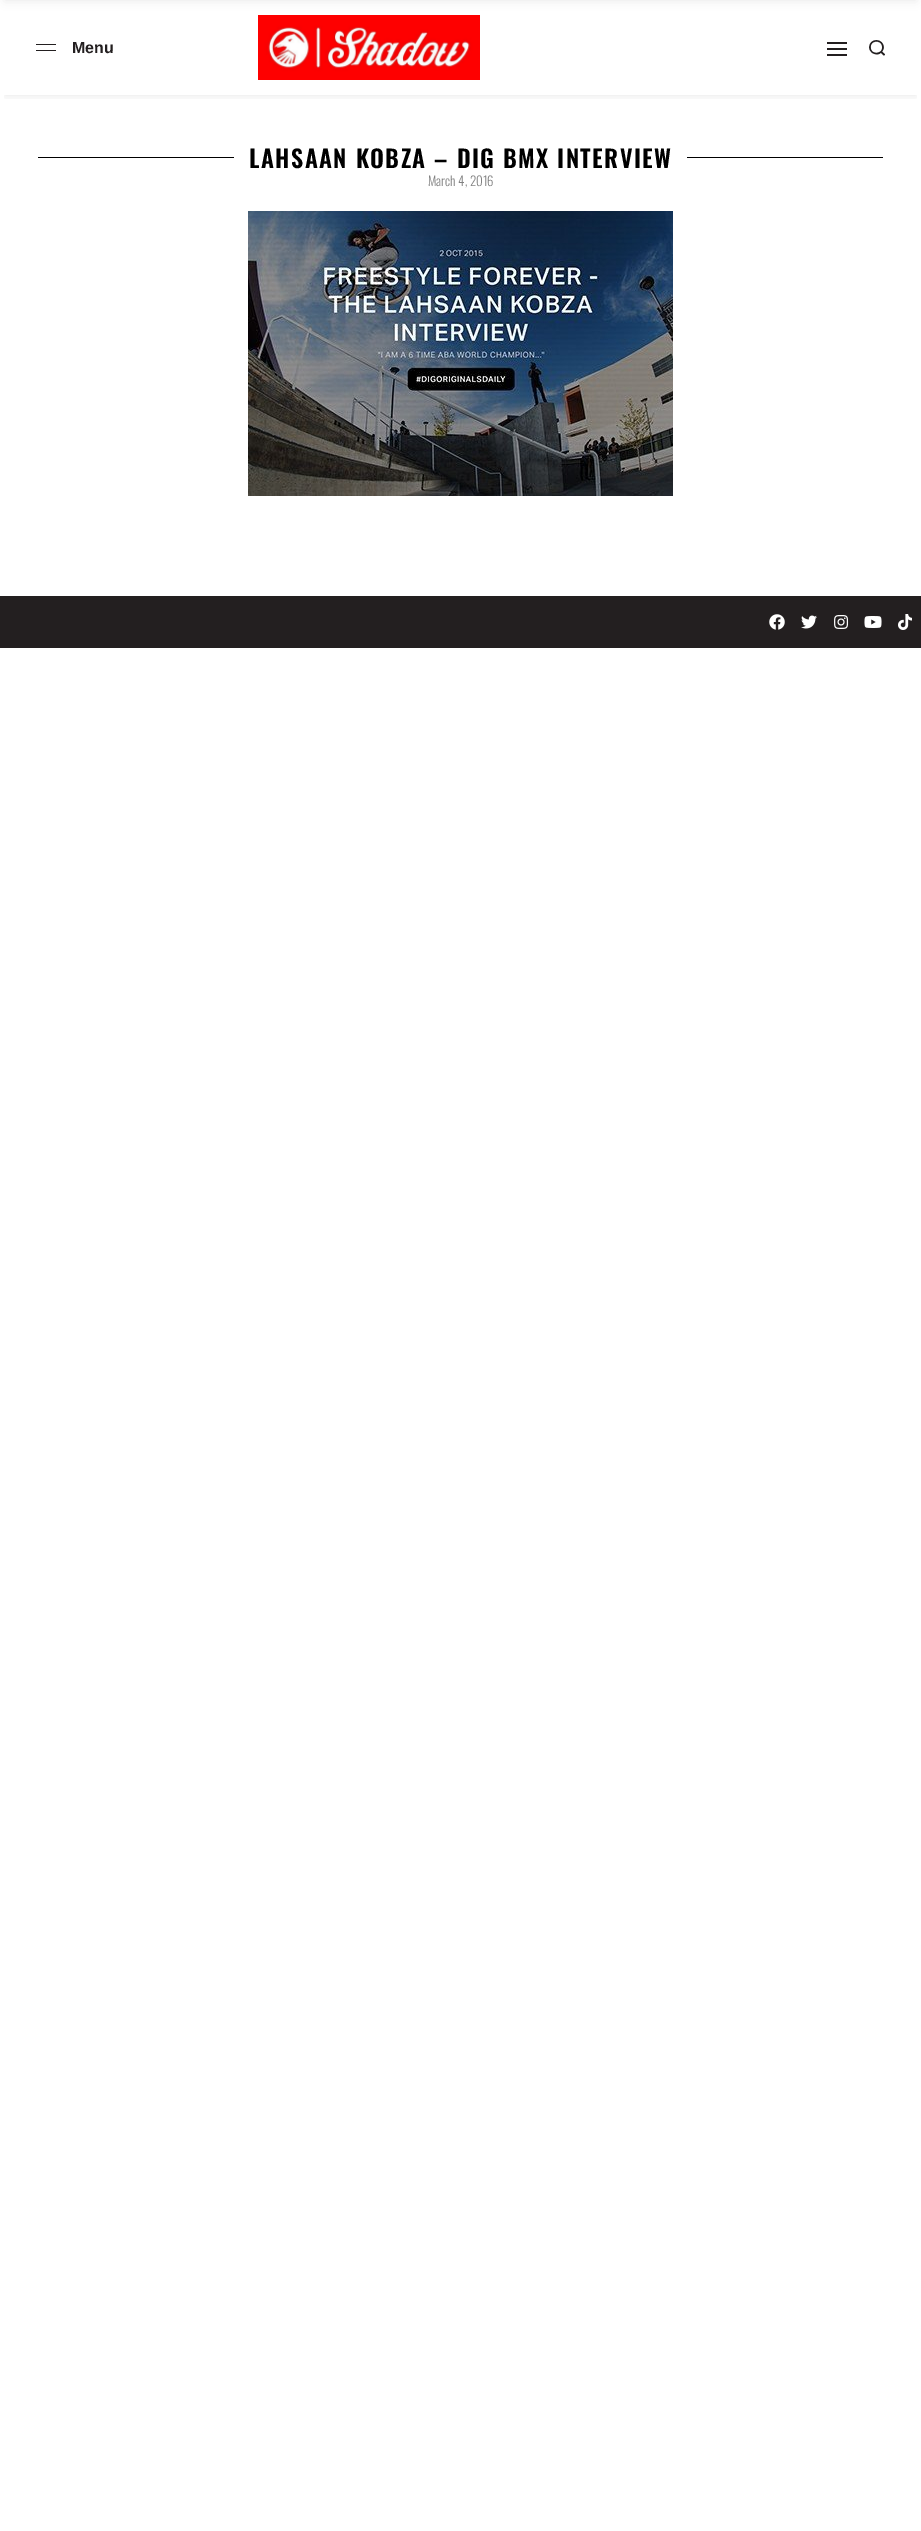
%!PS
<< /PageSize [921 2531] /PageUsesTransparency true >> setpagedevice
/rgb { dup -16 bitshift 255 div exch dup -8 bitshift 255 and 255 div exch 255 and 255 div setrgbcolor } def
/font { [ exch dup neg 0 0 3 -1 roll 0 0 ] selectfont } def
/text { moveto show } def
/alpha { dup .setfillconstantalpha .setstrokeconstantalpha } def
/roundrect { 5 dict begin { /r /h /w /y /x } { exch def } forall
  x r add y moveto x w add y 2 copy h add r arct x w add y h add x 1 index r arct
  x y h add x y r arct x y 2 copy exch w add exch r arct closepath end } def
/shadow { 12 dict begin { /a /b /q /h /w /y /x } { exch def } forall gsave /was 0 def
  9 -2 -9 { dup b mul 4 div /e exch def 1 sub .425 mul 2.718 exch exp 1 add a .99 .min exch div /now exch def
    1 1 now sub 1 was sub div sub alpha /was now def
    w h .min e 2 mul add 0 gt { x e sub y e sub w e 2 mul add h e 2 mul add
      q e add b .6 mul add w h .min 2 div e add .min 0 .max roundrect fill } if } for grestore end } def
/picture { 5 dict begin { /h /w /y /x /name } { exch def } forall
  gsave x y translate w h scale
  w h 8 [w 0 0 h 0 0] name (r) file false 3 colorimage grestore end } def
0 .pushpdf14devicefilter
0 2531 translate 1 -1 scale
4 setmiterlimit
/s1 { /LiberationSans-Bold 16 font 16#231F20 rgb } def
/s2 { /Oswald-Light 13 font 16#808080 rgb } def
16#FFFFFF rgb
0 0 921 2531 rectfill
gsave
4 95 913 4 rectclip
16#000000 rgb
5 10 911 85 0 5 0.1 shadow
grestore
(pic1.raw) 258 15 222 65 picture
16#000000 rgb
5 -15 911 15 0 5 0.1 shadow
16#231F20 rgb
36 44 20 1 0.5 roundrect fill
s1
(Menu) 72 53 text
36 50 20 1 0.5 roundrect fill
827 42 20 2 rectfill
827 48 20 2 rectfill
827 54 20 2 rectfill
(pic2.raw) 869 40 16 16 picture
16#000000 rgb
38 157 196 1 rectfill
/Oswald-SemiBold 24 font
249 168 moveto 1.45 0 (LAHSAAN KOBZA – DIG BMX INTERVIEW) ashow
687 157 196 1 rectfill
s2
(March 4, 2016) 428 186 text
(pic3.raw) 248 211 425 285 picture
16#231F20 rgb
0 596 921 52 rectfill
(pic4.raw) 769 614 16 16 picture
(pic5.raw) 801 615 16 14 picture
(pic6.raw) 834 615 15 14 picture
(pic7.raw) 864 616 18 12 picture
(pic8.raw) 898 614 14 16 picture
.poppdf14devicefilter showpage
